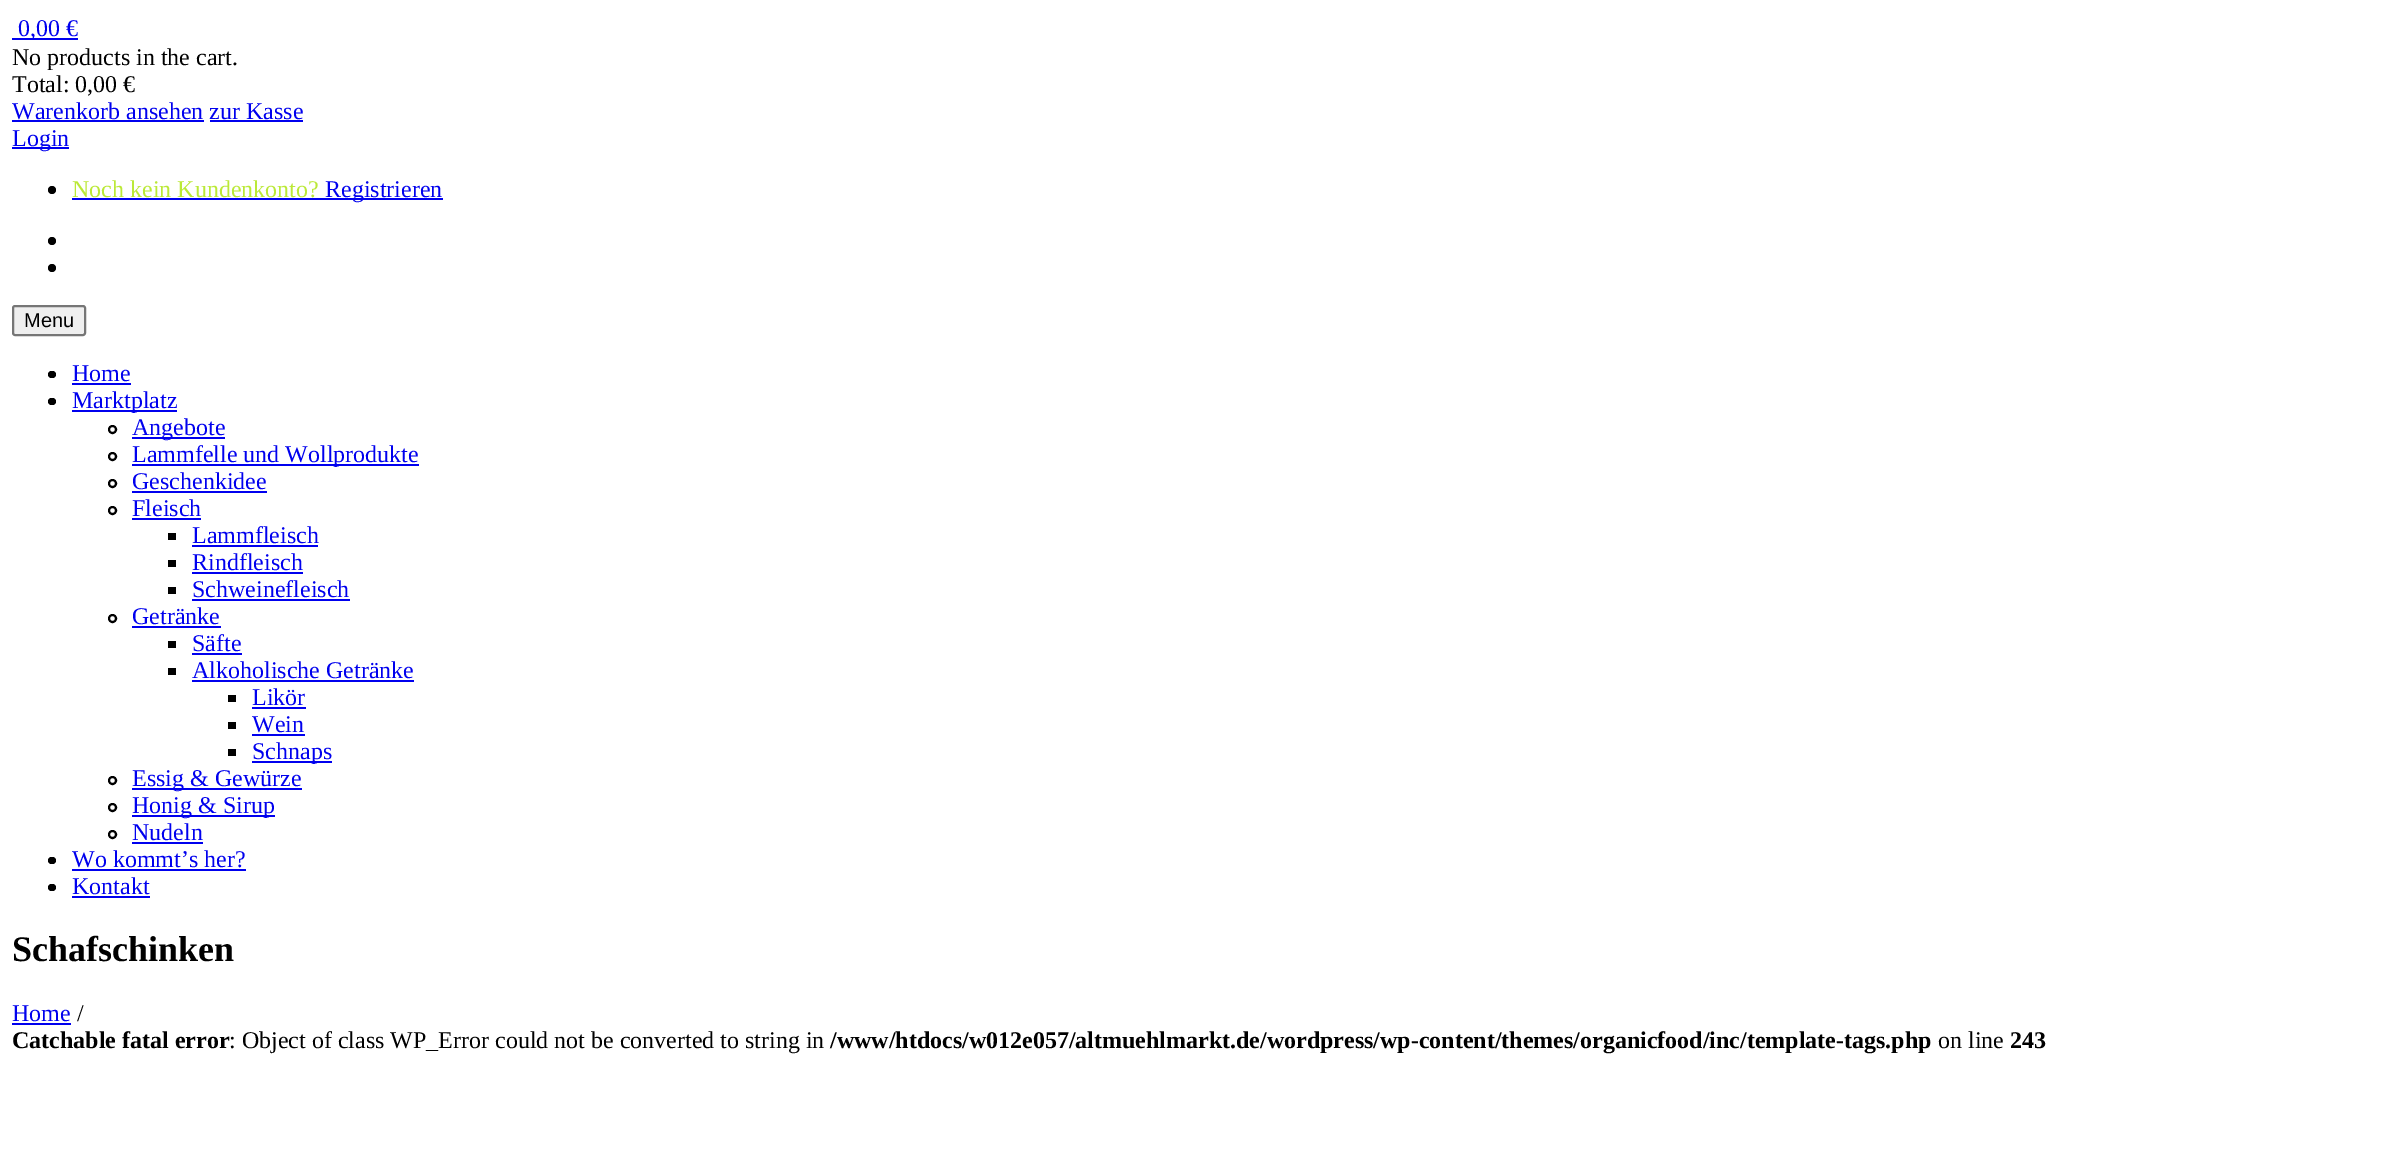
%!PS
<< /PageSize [2401 1169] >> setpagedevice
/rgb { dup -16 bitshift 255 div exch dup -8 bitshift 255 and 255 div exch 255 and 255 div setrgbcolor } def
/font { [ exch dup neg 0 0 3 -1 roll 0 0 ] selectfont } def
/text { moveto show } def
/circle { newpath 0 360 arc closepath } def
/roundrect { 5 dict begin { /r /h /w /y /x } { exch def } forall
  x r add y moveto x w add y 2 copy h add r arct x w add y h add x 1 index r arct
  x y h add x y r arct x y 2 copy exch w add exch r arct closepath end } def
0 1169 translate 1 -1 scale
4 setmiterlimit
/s1 { /LiberationSerif-Regular 24 font 16#0000EE rgb } def
/s2 { /LiberationSerif-Regular 24 font 16#000000 rgb } def
/s3 { /LiberationSerif-Regular 24 font 16#BBE937 rgb } def
/s4 { /LiberationSans-Regular 20 font 16#000000 rgb } def
/s5 { /LiberationSerif-Bold 36 font 16#000000 rgb } def
/s6 { /LiberationSerif-Bold 24 font 16#000000 rgb } def
16#FFFFFF rgb
0 0 2401 1169 rectfill
16#0000EE rgb
12 38 66 2 rectfill
s1
(0,00 €) 18 36 text
s2
(No products in the cart.) 12 65 text
(Total: 0,00 €) 12 92 text
s1
(Warenkorb ansehen zur Kasse) 12 119 text
12 120 192 2 rectfill
210 120 93 2 rectfill
12 147 57 2 rectfill
(Login) 12 146 text
16#000000 rgb
52 190 4 circle fill
s3
(Noch kein Kundenkonto?) 72 197 text
16#0000EE rgb
72 198 371 2 rectfill
(Registrieren) 325 197 text
16#000000 rgb
52 241 4 circle fill
52 268 4 circle fill
16#EFEFEF rgb
13 306 72 29 2 roundrect gsave fill grestore
16#767676 rgb
2 setlinewidth
stroke
s4
(Menu) 24 327 text
48 371 8 7 3.5 roundrect fill
s1
(Home) 72 381 text
72 383 59 2 rectfill
16#000000 rgb
48 398 8 7 3.5 roundrect fill
16#0000EE rgb
72 410 105 2 rectfill
(Marktplatz) 72 408 text
16#000000 rgb
112.5 429.5 3.5 circle stroke
16#0000EE rgb
132 437 93 2 rectfill
(Angebote) 132 435 text
16#000000 rgb
112.5 456.5 3.5 circle stroke
16#0000EE rgb
132 464 287 2 rectfill
(Lammfelle und Wollprodukte) 132 462 text
16#000000 rgb
112.5 483.5 3.5 circle stroke
s1
(Geschenkidee) 132 489 text
132 491 135 2 rectfill
16#000000 rgb
112.5 510.5 3.5 circle stroke
s1
(Fleisch) 132 516 text
132 518 69 2 rectfill
16#000000 rgb
168 533 8 7 rectfill
s1
(Lammfleisch) 192 543 text
192 545 126 2 rectfill
16#000000 rgb
168 560 8 7 rectfill
s1
(Rindfleisch) 192 570 text
192 572 111 2 rectfill
16#000000 rgb
168 587 8 7 rectfill
s1
(Schweinefleisch) 192 597 text
192 599 158 2 rectfill
16#000000 rgb
112.5 618.5 3.5 circle stroke
s1
(Getränke) 132 624 text
132 626 89 2 rectfill
16#000000 rgb
168 641 8 7 rectfill
s1
(Säfte) 192 651 text
192 653 50 2 rectfill
16#000000 rgb
168 668 8 7 rectfill
s1
(Alkoholische Getränke) 192 678 text
192 680 222 2 rectfill
16#000000 rgb
228 695 8 7 rectfill
s1
(Likör) 252 705 text
252 707 54 2 rectfill
16#000000 rgb
228 722 8 7 rectfill
s1
(Wein) 252 732 text
252 734 53 2 rectfill
16#000000 rgb
228 749 8 7 rectfill
16#0000EE rgb
252 761 80 2 rectfill
(Schnaps) 252 759 text
16#000000 rgb
112.5 780.5 3.5 circle stroke
16#0000EE rgb
132 788 170 2 rectfill
(Essig & Gewürze) 132 786 text
16#000000 rgb
112.5 807.5 3.5 circle stroke
16#0000EE rgb
132 815 143 2 rectfill
(Honig & Sirup) 132 813 text
16#000000 rgb
112.5 834.5 3.5 circle stroke
s1
(Nudeln) 132 840 text
132 842 71 2 rectfill
16#000000 rgb
48 857 8 7 3.5 roundrect fill
s1
(Wo kommt’s her?) 72 867 text
72 869 174 2 rectfill
16#000000 rgb
48 884 8 7 3.5 roundrect fill
s1
(Kontakt) 72 894 text
72 896 78 2 rectfill
s5
(Schafschinken) 12 961 text
s1
(Home) 12 1021 text
12 1023 59 2 rectfill
s2
(/) 77 1021 text
s6
(Catchable fatal error) 12 1048 text
s2
(: Object of class WP_Error could not be converted to string in) 229 1048 text
s6
(/www/htdocs/w012e057/altmuehlmarkt.de/wordpress/wp-content/themes/organicfood/inc/template-tags.php) 830 1048 text
s2
(on line) 1938 1048 text
s6
(243) 2010 1048 text
showpage
